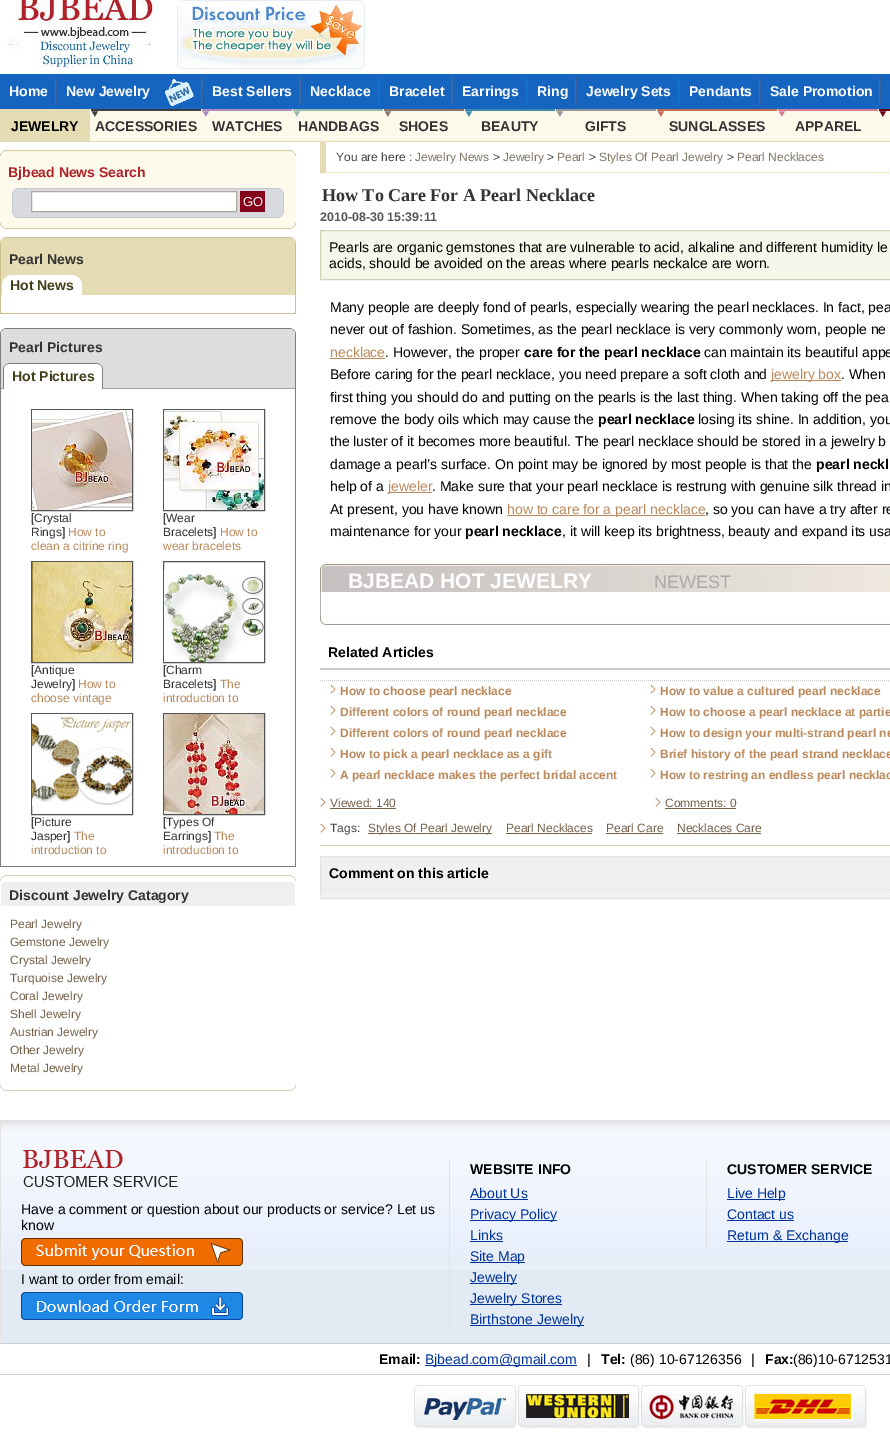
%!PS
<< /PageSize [890 1446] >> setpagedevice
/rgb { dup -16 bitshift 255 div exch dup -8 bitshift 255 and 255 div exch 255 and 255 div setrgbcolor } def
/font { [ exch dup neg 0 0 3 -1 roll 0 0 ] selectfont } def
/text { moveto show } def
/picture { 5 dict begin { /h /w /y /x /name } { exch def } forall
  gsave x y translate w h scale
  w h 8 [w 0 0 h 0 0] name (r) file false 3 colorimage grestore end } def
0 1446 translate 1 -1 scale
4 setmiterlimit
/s1 { /LiberationSans-Bold 14 font 16#FFFFFF rgb } def
/s2 { /LiberationSans-Bold 14 font 16#000000 rgb } def
/s3 { /LiberationSans-Bold 14 font 16#333333 rgb } def
/s4 { /LiberationSans-Bold 14 font 16#AE232A rgb } def
/s5 { /LiberationSans-Regular 13 font 16#FFFFFF rgb } def
/s6 { /LiberationSans-Bold 14 font 16#423E18 rgb } def
/s7 { /LiberationSans-Regular 12 font 16#000000 rgb } def
/s8 { /LiberationSans-Regular 12 font 16#333333 rgb } def
/s9 { /LiberationSans-Regular 12 font 16#BA8A5D rgb } def
/s10 { /LiberationSans-Regular 12 font 16#756149 rgb } def
/s11 { /LiberationSans-Regular 12 font 16#444444 rgb } def
/s12 { /LiberationSans-Regular 12 font 16#807562 rgb } def
/s13 { /LiberationSerif-Bold 18 font 16#333333 rgb } def
/s14 { /LiberationSans-Bold 12.5 font 16#555555 rgb } def
/s15 { /LiberationSans-Regular 14 font 16#000000 rgb } def
/s16 { /LiberationSans-Regular 14 font 16#BA8A5D rgb } def
/s17 { /LiberationSans-Bold 21 font 16#FFFFFF rgb } def
/s18 { /LiberationSans-Regular 18 font 16#AAAAAA rgb } def
/s19 { /LiberationSans-Bold 12 font 16#BA8A5D rgb } def
/s20 { /LiberationSans-Regular 14 font 16#003399 rgb } def
16#FFFFFF rgb
0 0 890 1446 rectfill
(pic1.raw) 8 0 152 68 picture
(pic2.raw) 177 0 188 70 picture
16#1565C0 rgb
0 74 890 35 rectfill
(pic3.raw) 55 78 2 27 picture
s1
(Home) 9 96 text
(pic3.raw) 201 78 2 27 picture
(New Jewelry) 66 96 text
(pic4.raw) 165 79 29 27 picture
(pic3.raw) 299 78 2 27 picture
(Best Sellers) 212 96 text
(pic3.raw) 378 78 2 27 picture
(Necklace) 310 96 text
(pic3.raw) 451 78 2 27 picture
(Bracelet) 389 96 text
(pic3.raw) 526 78 2 27 picture
(Earrings) 462 96 text
(pic3.raw) 575 78 2 27 picture
(Ring) 537 96 text
(pic3.raw) 678 78 2 27 picture
(Jewelry Sets) 586 96 text
(pic3.raw) 759 78 2 27 picture
(Pendants) 689 96 text
(pic3.raw) 879 78 2 27 picture
(Sale Promotion) 770 96 text
16#FDF9EA rgb
90 109 800 32 rectfill
16#E6DCB4 rgb
0 141 890 1 rectfill
(pic5.raw) 879 111 8 6 picture
16#6C0014 rgb
879 109 11 2 rectfill
16#E6DCB4 rgb
0 109 90 32 rectfill
s2
(JEWELRY) 11 131 text
(pic6.raw) 91 111 8 6 picture
16#3E3E3E rgb
91 109 110 2 rectfill
s3
(ACCESSORIES) 95 131 text
(pic7.raw) 202 111 8 6 picture
16#AB8CBC rgb
202 109 90 2 rectfill
s3
(WATCHES) 212 131 text
(pic8.raw) 293 111 8 6 picture
16#97B9AB rgb
293 109 90 2 rectfill
s3
(HANDBAGS) 298 131 text
(pic9.raw) 384 111 8 6 picture
16#89756E rgb
384 109 80 2 rectfill
s3
(SHOES) 399 131 text
(pic10.raw) 465 111 8 6 picture
16#3F8AA9 rgb
465 109 90 2 rectfill
s3
(BEAUTY) 481 131 text
(pic11.raw) 556 111 8 6 picture
16#959595 rgb
556 109 100 2 rectfill
s3
(GIFTS) 585 131 text
(pic12.raw) 657 111 8 6 picture
16#C26B4E rgb
657 109 120 2 rectfill
s3
(SUNGLASSES) 669 131 text
(pic13.raw) 778 111 8 6 picture
16#D37F97 rgb
778 109 100 2 rectfill
s3
(APPAREL) 795 131 text
(pic14.raw) 0 150 296 6 picture
16#FDFAEB rgb
0 156 296 67 rectfill
s4
(Bjbead News Search) 8 177 text
(pic15.raw) 12 188 272 30 picture
16#FFFFFF rgb
31.5 191.5 moveto 236.5 191.5 lineto 236.5 211.5 lineto 31.5 211.5 lineto closepath gsave fill grestore
16#AFA89E rgb
stroke
16#85021A rgb
240 191 25 21 rectfill
s5
(GO) 243 206 text
(pic16.raw) 0 223 296 6 picture
(pic17.raw) 0 237 296 6 picture
16#E6DCB4 rgb
1 243 294 52 rectfill
16#CCBF8D rgb
295 243 1 71 rectfill
0 313 296 1 rectfill
0 243 1 71 rectfill
s3
(Pearl News) 9 264 text
(pic18.raw) 2 275 80 20 picture
s6
(Hot News) 10 290 text
(pic19.raw) 0 328 296 6 picture
16#817C7C rgb
295 334 1 533 rectfill
0 866 296 1 rectfill
0 334 1 533 rectfill
16#DDDDDD rgb
1 334 294 54 rectfill
s3
(Pearl Pictures) 9 352 text
16#A9A2A2 rgb
1 388 294 1 rectfill
(pic20.raw) 3 363 100 26 picture
s6
(Hot Pictures) 12 381 text
16#555555 rgb
31.5 409.5 101 101 rectstroke
(pic21.raw) 32 410 100 100 picture
s7
([) 31 522 text
s8
(Crystal) 34 522 text
(Rings) 31 536 text
s7
(]) 62 536 text
s9
(How to) 68 536 text
(clean a citrine ring) 31 550 text
16#555555 rgb
163.5 409.5 101 101 rectstroke
(pic22.raw) 164 410 100 100 picture
s7
([) 163 522 text
s8
(Wear) 166 522 text
(Bracelets) 163 536 text
s7
(]) 213 536 text
s9
(How to) 220 536 text
(wear bracelets) 163 550 text
16#555555 rgb
31.5 561.5 101 101 rectstroke
(pic23.raw) 32 562 100 100 picture
s7
([) 31 674 text
s8
(Antique) 34 674 text
(Jewelry) 31 688 text
s7
(]) 72 688 text
s9
(How to) 78 688 text
(choose vintage) 31 702 text
16#555555 rgb
163.5 561.5 101 101 rectstroke
(pic24.raw) 164 570 100 92 picture
s7
([) 163 674 text
s8
(Charm) 166 674 text
(Bracelets) 163 688 text
s7
(]) 213 688 text
s9
(The) 220 688 text
(introduction to) 163 702 text
16#555555 rgb
31.5 713.5 101 101 rectstroke
(pic25.raw) 32 714 100 92 picture
s7
([) 31 826 text
s8
(Picture) 34 826 text
(Jasper) 31 840 text
s7
(]) 67 840 text
s9
(The) 74 840 text
(introduction to) 31 854 text
16#555555 rgb
163.5 713.5 101 101 rectstroke
(pic26.raw) 164 714 100 100 picture
s7
([) 163 826 text
s8
(Types Of) 166 826 text
(Earrings) 163 840 text
s7
(]) 208 840 text
s9
(The) 214 840 text
(introduction to) 163 854 text
(pic27.raw) 0 875 296 6 picture
16#EFEFEF rgb
1 882 294 24 rectfill
s3
(Discount Jewelry Catagory) 9 900 text
s10
(Pearl Jewelry) 10 928 text
(Gemstone Jewelry) 10 946 text
(Crystal Jewelry) 10 964 text
(Turquoise Jewelry) 10 982 text
(Coral Jewelry) 10 1000 text
(Shell Jewelry) 10 1018 text
(Austrian Jewelry) 10 1036 text
(Other Jewelry) 10 1054 text
(Metal Jewelry) 10 1072 text
(pic28.raw) 0 1085 296 6 picture
16#E6DCB4 rgb
[1 1] 0 setdash
320 172.5 moveto 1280 172.5 lineto stroke
320 142 6 31 rectfill
s11
(You are here :) 336 161 text
s12
(Jewelry News) 415 161 text
s11
(>) 493 161 text
s12
(Jewelry) 503 161 text
s11
(>) 547 161 text
s12
(Pearl) 557 161 text
s11
(>) 589 161 text
s12
(Styles Of Pearl Jewelry) 599 161 text
s11
(>) 727 161 text
s12
(Pearl Necklaces) 737 161 text
s13
(How To Care For A Pearl Necklace) 322 201 text
s14
(2010-08-30 15:39:11) 320 221 text
16#F6F7EB rgb
320.5 230.5 moveto 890.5 230.5 lineto 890.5 279.5 lineto 320.5 279.5 lineto closepath gsave fill grestore
16#D1D3B9 rgb
[] 0 setdash
stroke
s15
(Pearls are organic gemstones that are vulnerable to acid, alkaline and different humidity le) 329 252 text
(acids, should be avoided on the areas where pearls neckalce are worn.) 329 268 text
(Many people are deeply fond of pearls, especially wearing the pearl necklaces. In fact, pea) 330 312 text
(never out of fashion. Sometimes, as the pearl necklace is very commonly worn, people ne) 330 334 text
s16
(necklace) 330 357 text
330 358 55 1 rectfill
s15
(. However, the proper) 385 357 text
s2
(care for the pearl necklace) 524 357 text
s15
(can maintain its beautiful appe) 704 357 text
(Before caring for the pearl necklace, you need prepare a soft cloth and) 330 379 text
16#BA8A5D rgb
771 380 70 1 rectfill
(jewelry box) 771 379 text
s15
(. When) 841 379 text
(first thing you should do and putting on the pearls is the last thing. When taking off the pea) 330 402 text
(remove the body oils which may cause the) 330 424 text
s2
(pearl necklace) 598 424 text
s15
(losing its shine. In addition, you) 698 424 text
(the luster of it becomes more beautiful. The pearl necklace should be stored in a jewelry b) 330 446 text
(damage a pearl’s surface. On point may be ignored by most people is that the) 330 469 text
s2
(pearl neckl) 816 469 text
s15
(help of a) 330 491 text
16#BA8A5D rgb
388 492 44 1 rectfill
(jeweler) 388 491 text
s15
(. Make sure that your pearl necklace is restrung with genuine silk thread in) 432 491 text
(At present, you have known) 330 514 text
16#BA8A5D rgb
507 515 198 1 rectfill
(how to care for a pearl necklace) 507 514 text
s15
(, so you can have a try after re) 705 514 text
(maintenance for your) 330 536 text
s2
(pearl necklace) 465 536 text
s15
(, it will keep its brightness, beauty and expand its usa) 562 536 text
(pic29.raw) 320 563 570 29 picture
s17
(BJBEAD HOT JEWELRY) 348 588 text
s18
(NEWEST) 654 588 text
(pic30.raw) 320 616 570 10 picture
16#B4B4B4 rgb
320 592 1 24 rectfill
16#CCCCCC rgb
320 668 570 2 rectfill
s2
(Related Articles) 328 657 text
(pic31.raw) 330 685 6 9 picture
s19
(How to choose pearl necklace) 340 695 text
(pic31.raw) 650 685 6 9 picture
(How to value a cultured pearl necklace) 660 695 text
(pic31.raw) 330 706 6 9 picture
(Different colors of round pearl necklace) 340 716 text
(pic31.raw) 650 706 6 9 picture
(How to choose a pearl necklace at partie) 660 716 text
(pic31.raw) 330 727 6 9 picture
(Different colors of round pearl necklace) 340 737 text
(pic31.raw) 650 727 6 9 picture
(How to design your multi-strand pearl ne) 660 737 text
(pic31.raw) 330 748 6 9 picture
(How to pick a pearl necklace as a gift) 340 758 text
(pic31.raw) 650 748 6 9 picture
(Brief history of the pearl strand necklace) 660 758 text
(pic31.raw) 330 769 6 9 picture
(A pearl necklace makes the perfect bridal accent) 340 779 text
(pic31.raw) 650 769 6 9 picture
(How to restring an endless pearl necklac) 660 779 text
16#CCCCCC rgb
[1 1] 0 setdash
320 680.5 moveto 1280 680.5 lineto stroke
16#D1D3B9 rgb
320 845 570 1 rectfill
(pic31.raw) 320 798 6 9 picture
s10
(Viewed: 140) 330 807 text
330 808 66 1 rectfill
(pic31.raw) 655 798 6 9 picture
(Comments: 0) 665 807 text
665 808 71 1 rectfill
(pic31.raw) 320 824 6 9 picture
s11
(Tags:) 330 832 text
16#756149 rgb
368 833 124 1 rectfill
(Styles Of Pearl Jewelry) 368 832 text
(Pearl Necklaces) 506 832 text
506 833 86 1 rectfill
(Pearl Care) 606 832 text
606 833 57 1 rectfill
(Necklaces Care) 677 832 text
677 833 84 1 rectfill
16#F0F0F2 rgb
320.5 856.5 moveto 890.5 856.5 lineto 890.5 898.5 lineto 320.5 898.5 lineto closepath gsave fill grestore
16#E4E4E4 rgb
[] 0 setdash
stroke
[1 1] 0 setdash
321 889.5 moveto 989 889.5 lineto stroke
s2
(Comment on this article) 329 878 text
16#E2EBF3 rgb
1 1270 889 73 rectfill
(pic32.raw) 1 1121 889 149 picture
16#E2E2E2 rgb
0 1120 890 1 rectfill
16#CCCCCC rgb
0 1343 890 1 rectfill
16#E2E2E2 rgb
0 1120 1 224 rectfill
(pic33.raw) 21 1149 158 40 picture
s15
(Have a comment or question about our products or service? Let us) 21 1214 text
(know) 21 1230 text
(pic34.raw) 21 1238 222 28 picture
(I want to order from email:) 21 1284 text
(pic35.raw) 21 1292 222 28 picture
16#E2E2E2 rgb
449 1161 1 171 rectfill
s2
(WEBSITE INFO) 470 1174 text
s20
(About Us) 470 1198 text
470 1199 58 1 rectfill
470 1220 87 1 rectfill
(Privacy Policy) 470 1219 text
(Links) 470 1240 text
470 1241 33 1 rectfill
470 1262 55 1 rectfill
(Site Map) 470 1261 text
470 1283 47 1 rectfill
(Jewelry) 470 1282 text
470 1304 92 1 rectfill
(Jewelry Stores) 470 1303 text
470 1325 114 1 rectfill
(Birthstone Jewelry) 470 1324 text
16#E2E2E2 rgb
706 1161 1 87 rectfill
s2
(CUSTOMER SERVICE) 727 1174 text
16#003399 rgb
727 1199 58 1 rectfill
s20
(Live Help) 727 1198 text
(Contact us) 727 1219 text
727 1220 67 1 rectfill
727 1241 121 1 rectfill
(Return & Exchange) 727 1240 text
16#CCCCCC rgb
0 1374 890 1 rectfill
s2
(Email:) 379 1364 text
16#003399 rgb
425 1365 152 1 rectfill
s20
(Bjbead.com@gmail.com) 425 1364 text
s15
(|) 587 1364 text
s2
(Tel:) 601 1364 text
s15
(\(86\) 10-67126356) 630 1364 text
(|) 751 1364 text
s2
(Fax:) 765 1364 text
s15
(\(86\)10-6712531) 793 1364 text
(pic36.raw) 414 1385 104 44 picture
(pic37.raw) 518 1385 123 44 picture
(pic38.raw) 641 1385 104 44 picture
(pic39.raw) 745 1385 123 44 picture
showpage
